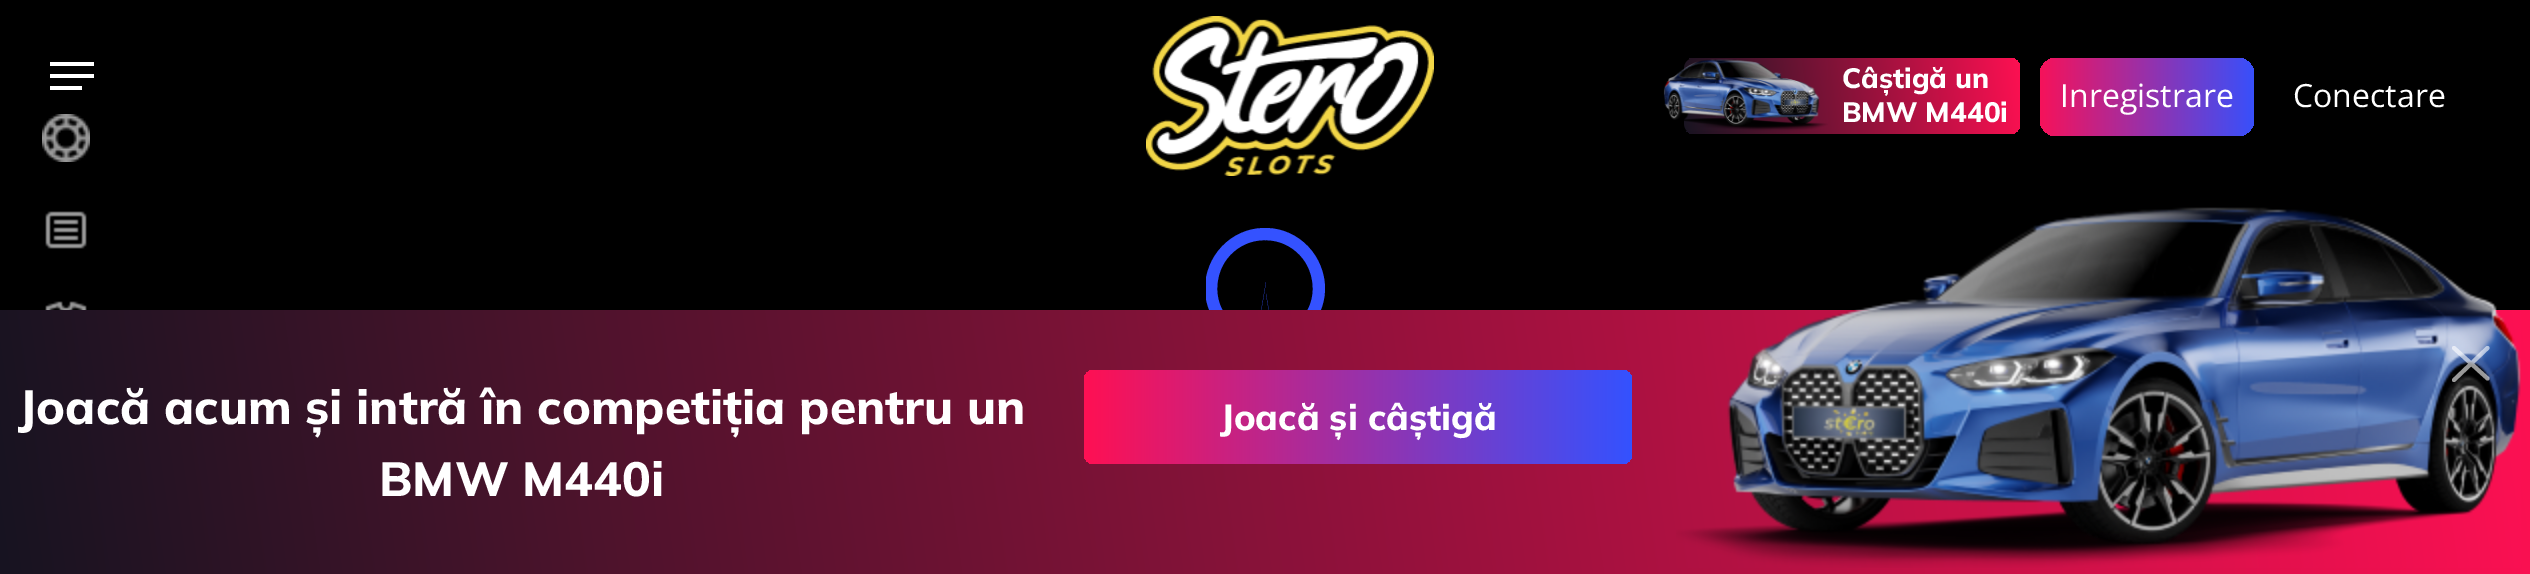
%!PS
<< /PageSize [2530 574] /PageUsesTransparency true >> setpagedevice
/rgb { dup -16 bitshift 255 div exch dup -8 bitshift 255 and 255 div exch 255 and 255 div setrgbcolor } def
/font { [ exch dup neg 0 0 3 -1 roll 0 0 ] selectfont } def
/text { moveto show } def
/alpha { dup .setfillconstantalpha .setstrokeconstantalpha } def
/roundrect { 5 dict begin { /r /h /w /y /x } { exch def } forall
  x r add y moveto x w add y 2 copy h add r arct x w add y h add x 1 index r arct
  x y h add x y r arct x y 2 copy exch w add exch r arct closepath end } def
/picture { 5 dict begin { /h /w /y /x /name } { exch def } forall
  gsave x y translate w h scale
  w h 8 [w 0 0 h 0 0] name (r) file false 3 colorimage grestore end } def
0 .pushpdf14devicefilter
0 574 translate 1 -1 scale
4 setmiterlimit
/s1 { /Mulish-ExtraBold 28 font 16#FFFFFF rgb } def
/s2 { /OpenSans-Regular 32 font 16#FFFFFF rgb } def
/s3 { /Mulish-ExtraBold 48 font 16#FFFFFF rgb } def
/s4 { /Mulish-ExtraBold 36 font 16#FFFFFF rgb } def
16#000000 rgb
0 0 2530 574 rectfill
16#FFFFFF rgb
50 62 44 4 rectfill
50 74 44 4 rectfill
50 86 32 4 rectfill
(pic1.raw) 42 114 48 48 picture
(pic2.raw) 45 211 42 38 picture
(pic3.raw) 45 301 42 9 picture
(pic4.raw) 1146 16 288 160 picture
gsave 1684 58 336 76 10 roundrect clip newpath
<< /ShadingType 2 /ColorSpace /DeviceRGB /Coords [1677 121 2025 72] /Extend [true true] /Function << /FunctionType 2 /Domain [0 1] /C0 [0.078 0.078 0.125] /C1 [1 0.063 0.325] /N 1 >> >> shfill grestore
(pic5.raw) 1663 59 165 72 picture
s1
(Câștigă un) 1842 88 text
(BMW M440i) 1842 122 text
gsave 2040 58 214 78 16 roundrect clip newpath
<< /ShadingType 2 /ColorSpace /DeviceRGB /Coords [2040 97 2254 97] /Extend [true true] /Function << /FunctionType 2 /Domain [0 1] /C0 [0.965 0.071 0.353] /C1 [0.22 0.314 0.984] /N 1 >> >> shfill grestore
s2
(Inregistrare) 2060 107 text
(Conectare) 2293 107 text
gsave
1206 228 60 120 rectclip
16#3452FF rgb
1275 229 moveto 1255 347 lineto 1222 341 1200 310 1206 278 curveto 1212 245 1243 223 1275 229 curveto closepath 1273 241 moveto 1257 335 lineto 1231 331 1213 306 1218 280 curveto 1222 254 1247 236 1273 241 curveto closepath eofill
grestore
gsave
1266 228 60 120 rectclip
16#3452FF rgb
1255 229 moveto 1287 223 1318 245 1324 278 curveto 1330 310 1308 341 1275 347 curveto closepath 1257 241 moveto 1283 236 1308 254 1312 280 curveto 1317 306 1299 331 1273 335 curveto closepath eofill
grestore
gsave 0 310 moveto 2530 310 lineto 2530 574 lineto 0 574 lineto closepath clip newpath
<< /ShadingType 2 /ColorSpace /DeviceRGB /Coords [-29 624 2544 262] /Extend [true true] /Function << /FunctionType 2 /Domain [0 1] /C0 [0.078 0.078 0.125] /C1 [1 0.063 0.325] /N 1 >> >> shfill grestore
(pic6.raw) 1676 207 845 361 picture
0.6 alpha
4 setlinewidth
1 setlinecap
1 setlinejoin
2454 348 moveto 2487.5 378.5 lineto 2454 380 moveto 2487.5 348 lineto stroke
1 alpha
s3
(Joacă acum și intră în competiția pentru un) 18 424 text
(BMW M440i) 379 496 text
gsave 1084 370 548 94 10 roundrect clip newpath
<< /ShadingType 2 /ColorSpace /DeviceRGB /Coords [1084 417 1632 417] /Extend [true true] /Function << /FunctionType 2 /Domain [0 1] /C0 [1 0.063 0.325] /C1 [0.204 0.322 1] /N 1 >> >> shfill grestore
s4
(Joacă și câștigă) 1220 430 text
.poppdf14devicefilter showpage
